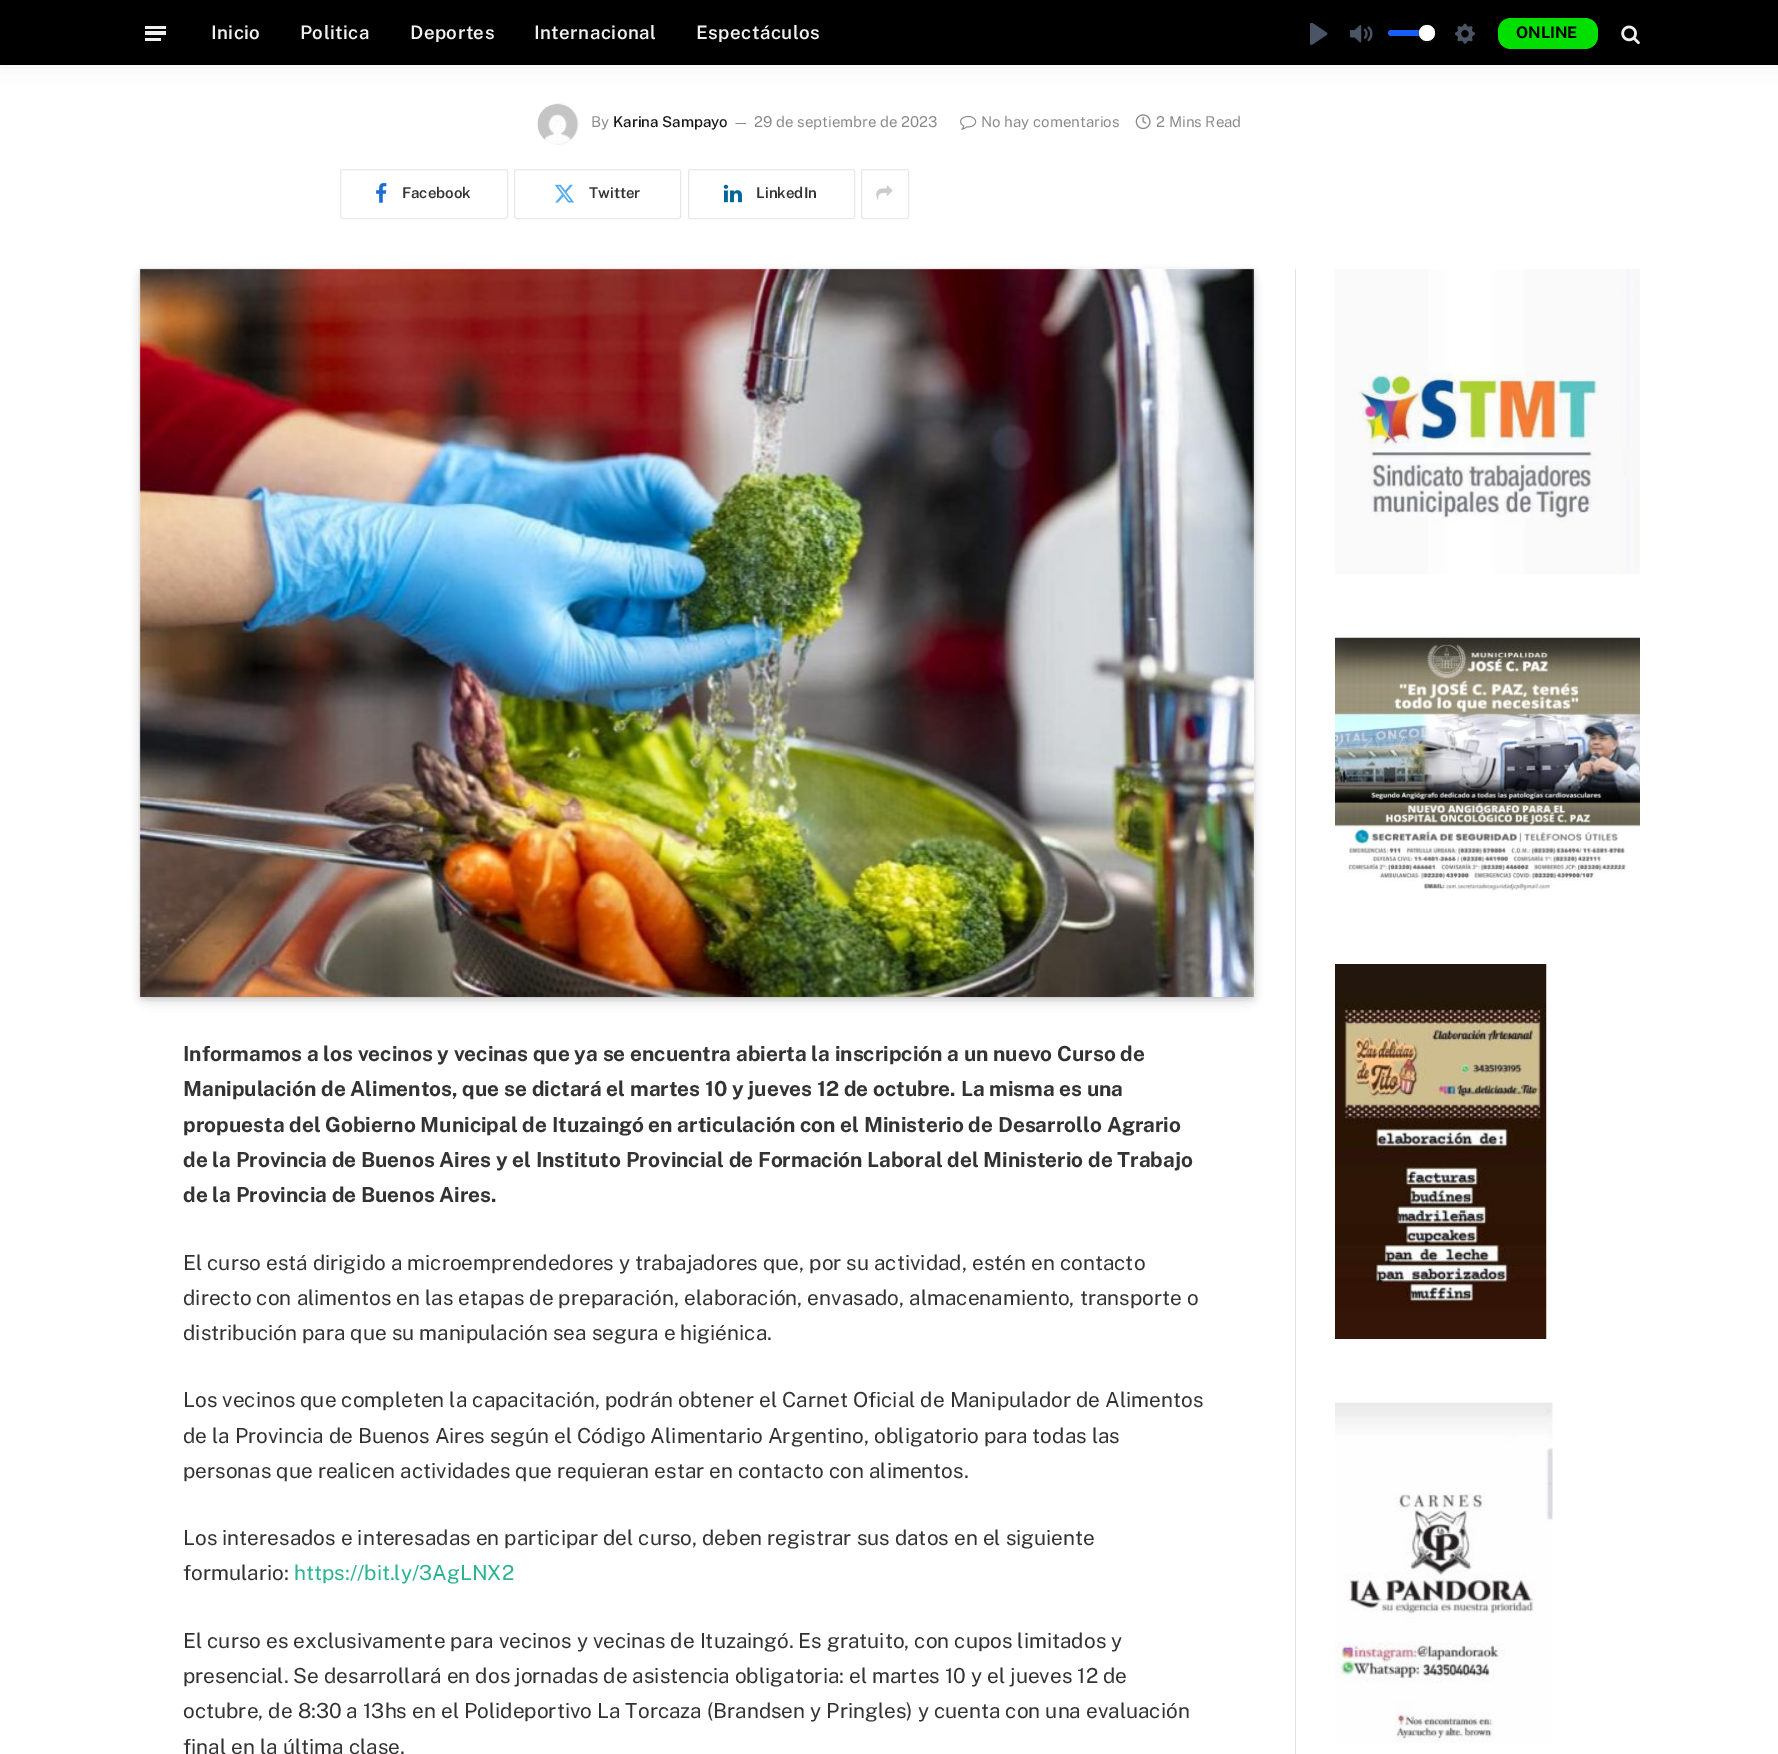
%!PS
<< /PageSize [1778 1754] /PageUsesTransparency true >> setpagedevice
/rgb { dup -16 bitshift 255 div exch dup -8 bitshift 255 and 255 div exch 255 and 255 div setrgbcolor } def
/font { [ exch dup neg 0 0 3 -1 roll 0 0 ] selectfont } def
/text { moveto show } def
/alpha { dup .setfillconstantalpha .setstrokeconstantalpha } def
/circle { newpath 0 360 arc closepath } def
/roundrect { 5 dict begin { /r /h /w /y /x } { exch def } forall
  x r add y moveto x w add y 2 copy h add r arct x w add y h add x 1 index r arct
  x y h add x y r arct x y 2 copy exch w add exch r arct closepath end } def
/shadow { 12 dict begin { /a /b /q /h /w /y /x } { exch def } forall gsave /was 0 def
  9 -2 -9 { dup b mul 4 div /e exch def 1 sub .425 mul 2.718 exch exp 1 add a .99 .min exch div /now exch def
    1 1 now sub 1 was sub div sub alpha /was now def
    w h .min e 2 mul add 0 gt { x e sub y e sub w e 2 mul add h e 2 mul add
      q e add b .6 mul add w h .min 2 div e add .min 0 .max roundrect fill } if } for grestore end } def
/picture { 5 dict begin { /h /w /y /x /name } { exch def } forall
  gsave x y translate w h scale
  w h 8 [w 0 0 h 0 0] name (r) file false 3 colorimage grestore end } def
0 .pushpdf14devicefilter
0 1754 translate 1 -1 scale
4 setmiterlimit
/s1 { /PublicSans-Bold 16 font 16#000000 rgb } def
/s2 { /PublicSans-Regular 15 font 16#8A8A8A rgb } def
/s3 { /PublicSans-Medium 15 font 16#191919 rgb } def
/s4 { /PublicSans-Regular 14 font 16#8A8A8A rgb } def
/s5 { /PublicSans-SemiBold 15 font 16#333333 rgb } def
/s6 { /PublicSans-Bold 20.75 font 16#333333 rgb } def
/s7 { /PublicSans-Regular 20.75 font 16#333333 rgb } def
/s8 { /PublicSans-Regular 20.75 font 16#2AB391 rgb } def
16#FFFFFF rgb
0 0 1778 1754 rectfill
16#000000 rgb
0 0 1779 65 0 12.5 0.05 shadow
0 0 1778 65 rectfill
16#F0F0F0 rgb
145 38 16 3 rectfill
145 26 21 3 rectfill
145 31 21 4 rectfill
/PublicSans-SemiBold 18.75 font
211 39 moveto 0.4 0 (Inicio) ashow
300 39 moveto 0.4 0 (Politica) ashow
410 39 moveto 0.4 0 (Deportes) ashow
534 39 moveto 0.4 0 (Internacional) ashow
696 39 moveto 0.4 0 (Espectáculos) ashow
(pic1.raw) 1310 23 18 22 picture
(pic2.raw) 1350 25 23 18 picture
16#195FF5 rgb
1388 30 47 6 3 roundrect fill
0.2 alpha
16#23282F rgb
1418.5 24.5 17 18 8.5 roundrect stroke
1 alpha
1419 26 16 17 8 0.5 0.15 shadow
16#FFFFFF rgb
1427 33 8 circle fill
(pic3.raw) 1455 23 20 21 picture
16#01DF01 rgb
1498 18 100 31 13 roundrect fill
s1
(ONLINE) 1516 38 text
(pic4.raw) 1621 25 19 20 picture
538 104 40 40 20 0.5 0.2 shadow
(pic5.raw) 537 104 41 40 picture
s2
(By) 591 127 text
s3
(Karina Sampayo) 613 127 text
s4
(—) 733 127 text
s2
(29 de septiembre de 2023) 754 127 text
(pic6.raw) 960 115 17 15 picture
(No hay comentarios) 981 127 text
(pic7.raw) 1135 114 16 16 picture
(2 Mins Read) 1156 127 text
16#E8E8E8 rgb
340.5 169.5 167 49 2 roundrect stroke
(pic8.raw) 376 183 11 20 picture
s5
(Facebook) 402 198 text
16#E8E8E8 rgb
514.5 169.5 166 49 2 roundrect stroke
(pic9.raw) 554 184 21 19 picture
s5
(Twitter) 589 198 text
16#E8E8E8 rgb
688.5 169.5 166 49 2 roundrect stroke
(pic10.raw) 723 184 19 19 picture
s5
(LinkedIn) 756 198 text
16#E8E8E8 rgb
861.5 169.5 47 49 2 roundrect stroke
(pic11.raw) 876 185 17 15 picture
16#070A19 rgb
148 284 1098 712 0 7.5 0.2 shadow
141 273 1112 725 0 4 0.2 shadow
(pic12.raw) 139 268 1115 729 picture
s6
(Informamos a los vecinos y vecinas que ya se encuentra abierta la inscripción a un nuevo Curso de) 183 1061 text
(Manipulación de Alimentos, que se dictará el martes 10 y jueves 12 de octubre. La misma es una) 183 1096 text
(propuesta del Gobierno Municipal de Ituzaingó en articulación con el Ministerio de Desarrollo Agrario) 183 1132 text
(de la Provincia de Buenos Aires y el Instituto Provincial de Formación Laboral del Ministerio de Trabajo) 183 1167 text
(de la Provincia de Buenos Aires.) 183 1202 text
s7
(El curso está dirigido a microemprendedores y trabajadores que, por su actividad, estén en contacto) 183 1270 text
(directo con alimentos en las etapas de preparación, elaboración, envasado, almacenamiento, transporte o) 183 1305 text
(distribución para que su manipulación sea segura e higiénica.) 183 1340 text
(Los vecinos que completen la capacitación, podrán obtener el Carnet Oficial de Manipulador de Alimentos) 183 1407 text
(de la Provincia de Buenos Aires según el Código Alimentario Argentino, obligatorio para todas las) 183 1443 text
(personas que realicen actividades que requieran estar en contacto con alimentos.) 183 1478 text
(Los interesados e interesadas en participar del curso, deben registrar sus datos en el siguiente) 183 1545 text
(formulario:) 183 1580 text
s8
(https://bit.ly/3AgLNX2) 294 1580 text
s7
(El curso es exclusivamente para vecinos y vecinas de Ituzaingó. Es gratuito, con cupos limitados y) 183 1648 text
(presencial. Se desarrollará en dos jornadas de asistencia obligatoria: el martes 10 y el jueves 12 de) 183 1683 text
(octubre, de 8:30 a 13hs en el Polideportivo La Torcaza \(Brandsen y Pringles\) y cuenta con una evaluación) 183 1718 text
(final en la última clase.) 183 1754 text
16#E2E2E2 rgb
1295 269 1 1485 rectfill
(pic13.raw) 1335 269 305 305 picture
(pic14.raw) 1335 637 305 259 picture
(pic15.raw) 1335 964 212 375 picture
(pic16.raw) 1335 1402 218 341 picture
.poppdf14devicefilter showpage
